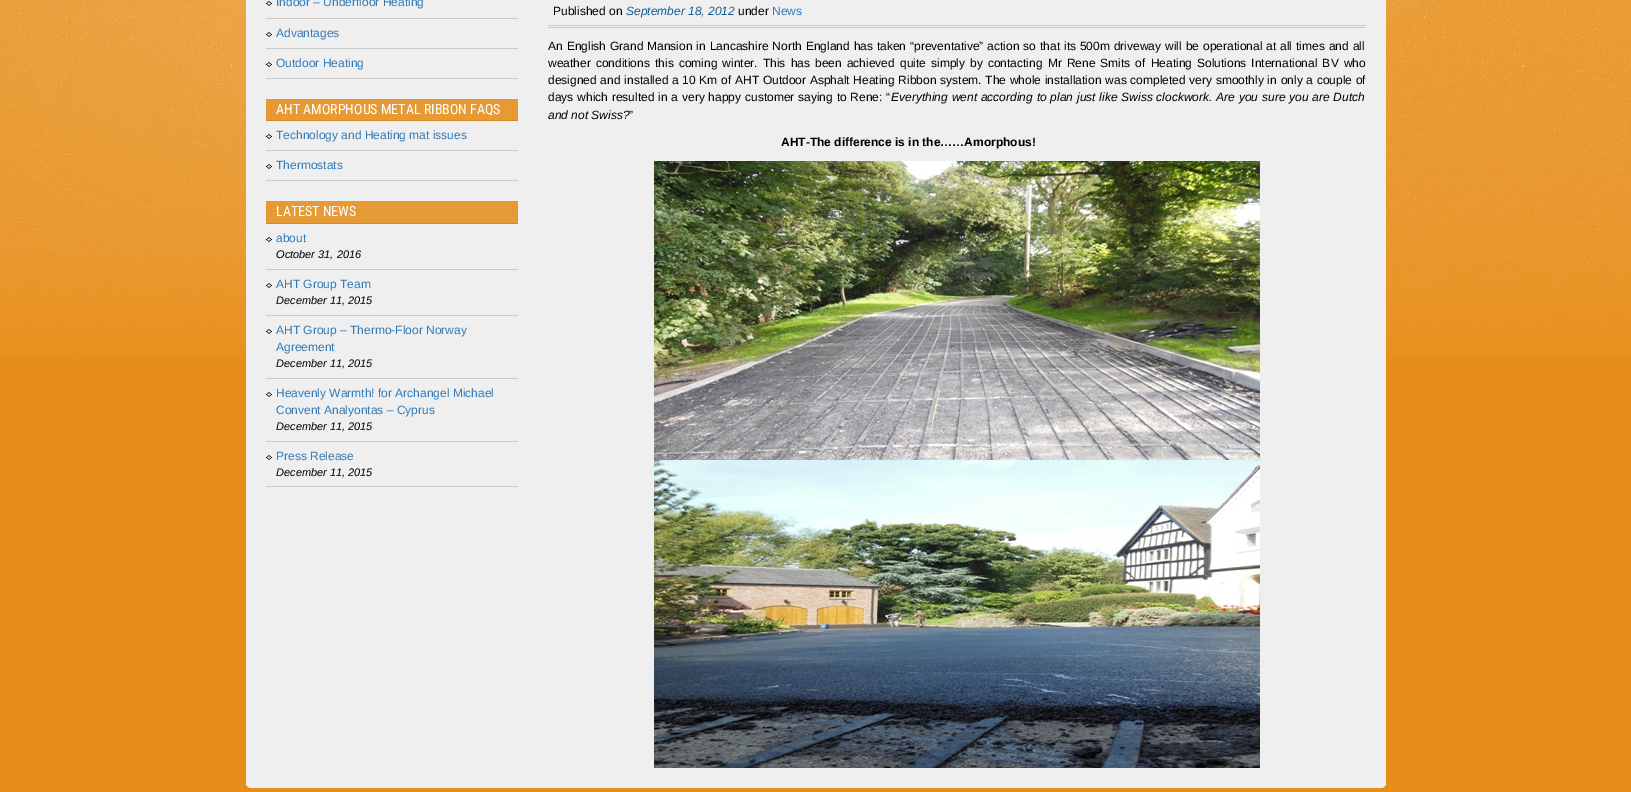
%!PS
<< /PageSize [1631 792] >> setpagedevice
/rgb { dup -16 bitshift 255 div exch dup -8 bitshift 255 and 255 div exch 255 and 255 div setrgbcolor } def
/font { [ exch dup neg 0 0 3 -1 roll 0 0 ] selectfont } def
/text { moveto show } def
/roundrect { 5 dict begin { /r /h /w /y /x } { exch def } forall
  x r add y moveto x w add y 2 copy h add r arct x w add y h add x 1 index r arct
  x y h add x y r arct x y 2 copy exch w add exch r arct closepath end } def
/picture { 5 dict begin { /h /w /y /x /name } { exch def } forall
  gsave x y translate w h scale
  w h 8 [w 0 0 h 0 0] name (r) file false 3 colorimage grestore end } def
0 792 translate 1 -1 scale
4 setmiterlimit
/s1 { /LiberationSans-Regular 12 font 16#337AB7 rgb } def
/s2 { /RobotoCondensed-Regular 14 font 16#FFFFFF rgb } def
/s3 { /LiberationSans-Italic 11 font 16#000000 rgb } def
/s4 { /LiberationSans-Regular 12 font 16#000000 rgb } def
/s5 { /LiberationSans-Italic 12 font 16#105C95 rgb } def
/s6 { /LiberationSans-Italic 12 font 16#000000 rgb } def
/s7 { /LiberationSans-Bold 12 font 16#000000 rgb } def
16#E78E1A rgb
0 0 1631 792 rectfill
(pic1.raw) 0 0 1631 358 picture
16#EFEFEF rgb
246 -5 1140 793 5 roundrect fill
(pic2.raw) 266 1 6 5 picture
16#CBCBCB rgb
266 18 252 1 rectfill
s1
(Indoor – Underfloor Heating) 276 6 text
(pic2.raw) 266 32 6 5 picture
16#CBCBCB rgb
266 48 252 1 rectfill
s1
(Advantages) 276 37 text
(pic2.raw) 266 62 6 5 picture
16#CBCBCB rgb
266 78 252 1 rectfill
s1
(Outdoor Heating) 276 67 text
16#E59A36 rgb
266 99 252 21 rectfill
16#D7871C rgb
266 120 252 1 rectfill
s2
(AHT AMORPHOUS METAL RIBBON FAQS) 276 114 text
(pic2.raw) 266 134 6 5 picture
16#CBCBCB rgb
266 150 252 1 rectfill
s1
(Technology and Heating mat issues) 276 139 text
(pic2.raw) 266 164 6 5 picture
16#CBCBCB rgb
266 180 252 1 rectfill
s1
(Thermostats) 276 169 text
16#E59A36 rgb
266 201 252 22 rectfill
16#D7871C rgb
266 223 252 1 rectfill
s2
(LATEST NEWS) 276 216 text
(pic2.raw) 266 237 6 5 picture
16#CBCBCB rgb
266 269 252 1 rectfill
s1
(about) 276 242 text
s3
(October 31, 2016) 276 258 text
(pic2.raw) 266 283 6 5 picture
16#CBCBCB rgb
266 315 252 1 rectfill
s1
(AHT Group Team) 276 288 text
s3
(December 11, 2015) 276 304 text
(pic2.raw) 266 329 6 5 picture
16#CBCBCB rgb
266 378 252 1 rectfill
s1
(AHT Group – Thermo-Floor Norway) 276 334 text
(Agreement) 276 351 text
s3
(December 11, 2015) 276 367 text
(pic2.raw) 266 392 6 5 picture
16#CBCBCB rgb
266 441 252 1 rectfill
s1
(Heavenly Warmth! for Archangel Michael) 276 397 text
(Convent Analyontas – Cyprus) 276 414 text
s3
(December 11, 2015) 276 430 text
(pic2.raw) 266 455 6 5 picture
16#CBCBCB rgb
266 486 252 1 rectfill
s1
(Press Release) 276 460 text
s3
(December 11, 2015) 276 476 text
16#CCCCCC rgb
548 25 818 1 rectfill
548 27 818 1 rectfill
s4
(Published on) 553 15 text
s5
(September 18, 2012) 626 15 text
s4
(under) 738 15 text
s1
(News) 772 15 text
16#000000 rgb
548 50 moveto 0.6 0 32 (An English Grand Mansion in Lancashire North England has taken “preventative” action so that its 500m driveway will be operational at all times and all) widthshow
548 67 moveto 1.75 0 32 (weather conditions this coming winter. This has been achieved quite simply by contacting Mr Rene Smits of Heating Solutions International BV who) widthshow
548 84 moveto 0.4 0 32 (designed and installed a 10 Km of AHT Outdoor Asphalt Heating Ribbon system. The whole installation was completed very smoothly in only a couple of) widthshow
548 101 moveto 0.5 0 32 (days which resulted in a very happy customer saying to Rene: “) widthshow
/LiberationSans-Italic 12 font
891 101 moveto 0.5 0 32 (Everything went according to plan just like Swiss clockwork. Are you sure you are Dutch) widthshow
(and not Swiss?) 548 119 text
s4
(”) 629 119 text
s7
(AHT-The difference is in the……Amorphous!) 781 146 text
(pic3.raw) 654 161 606 299 picture
(pic4.raw) 654 460 606 308 picture
showpage
